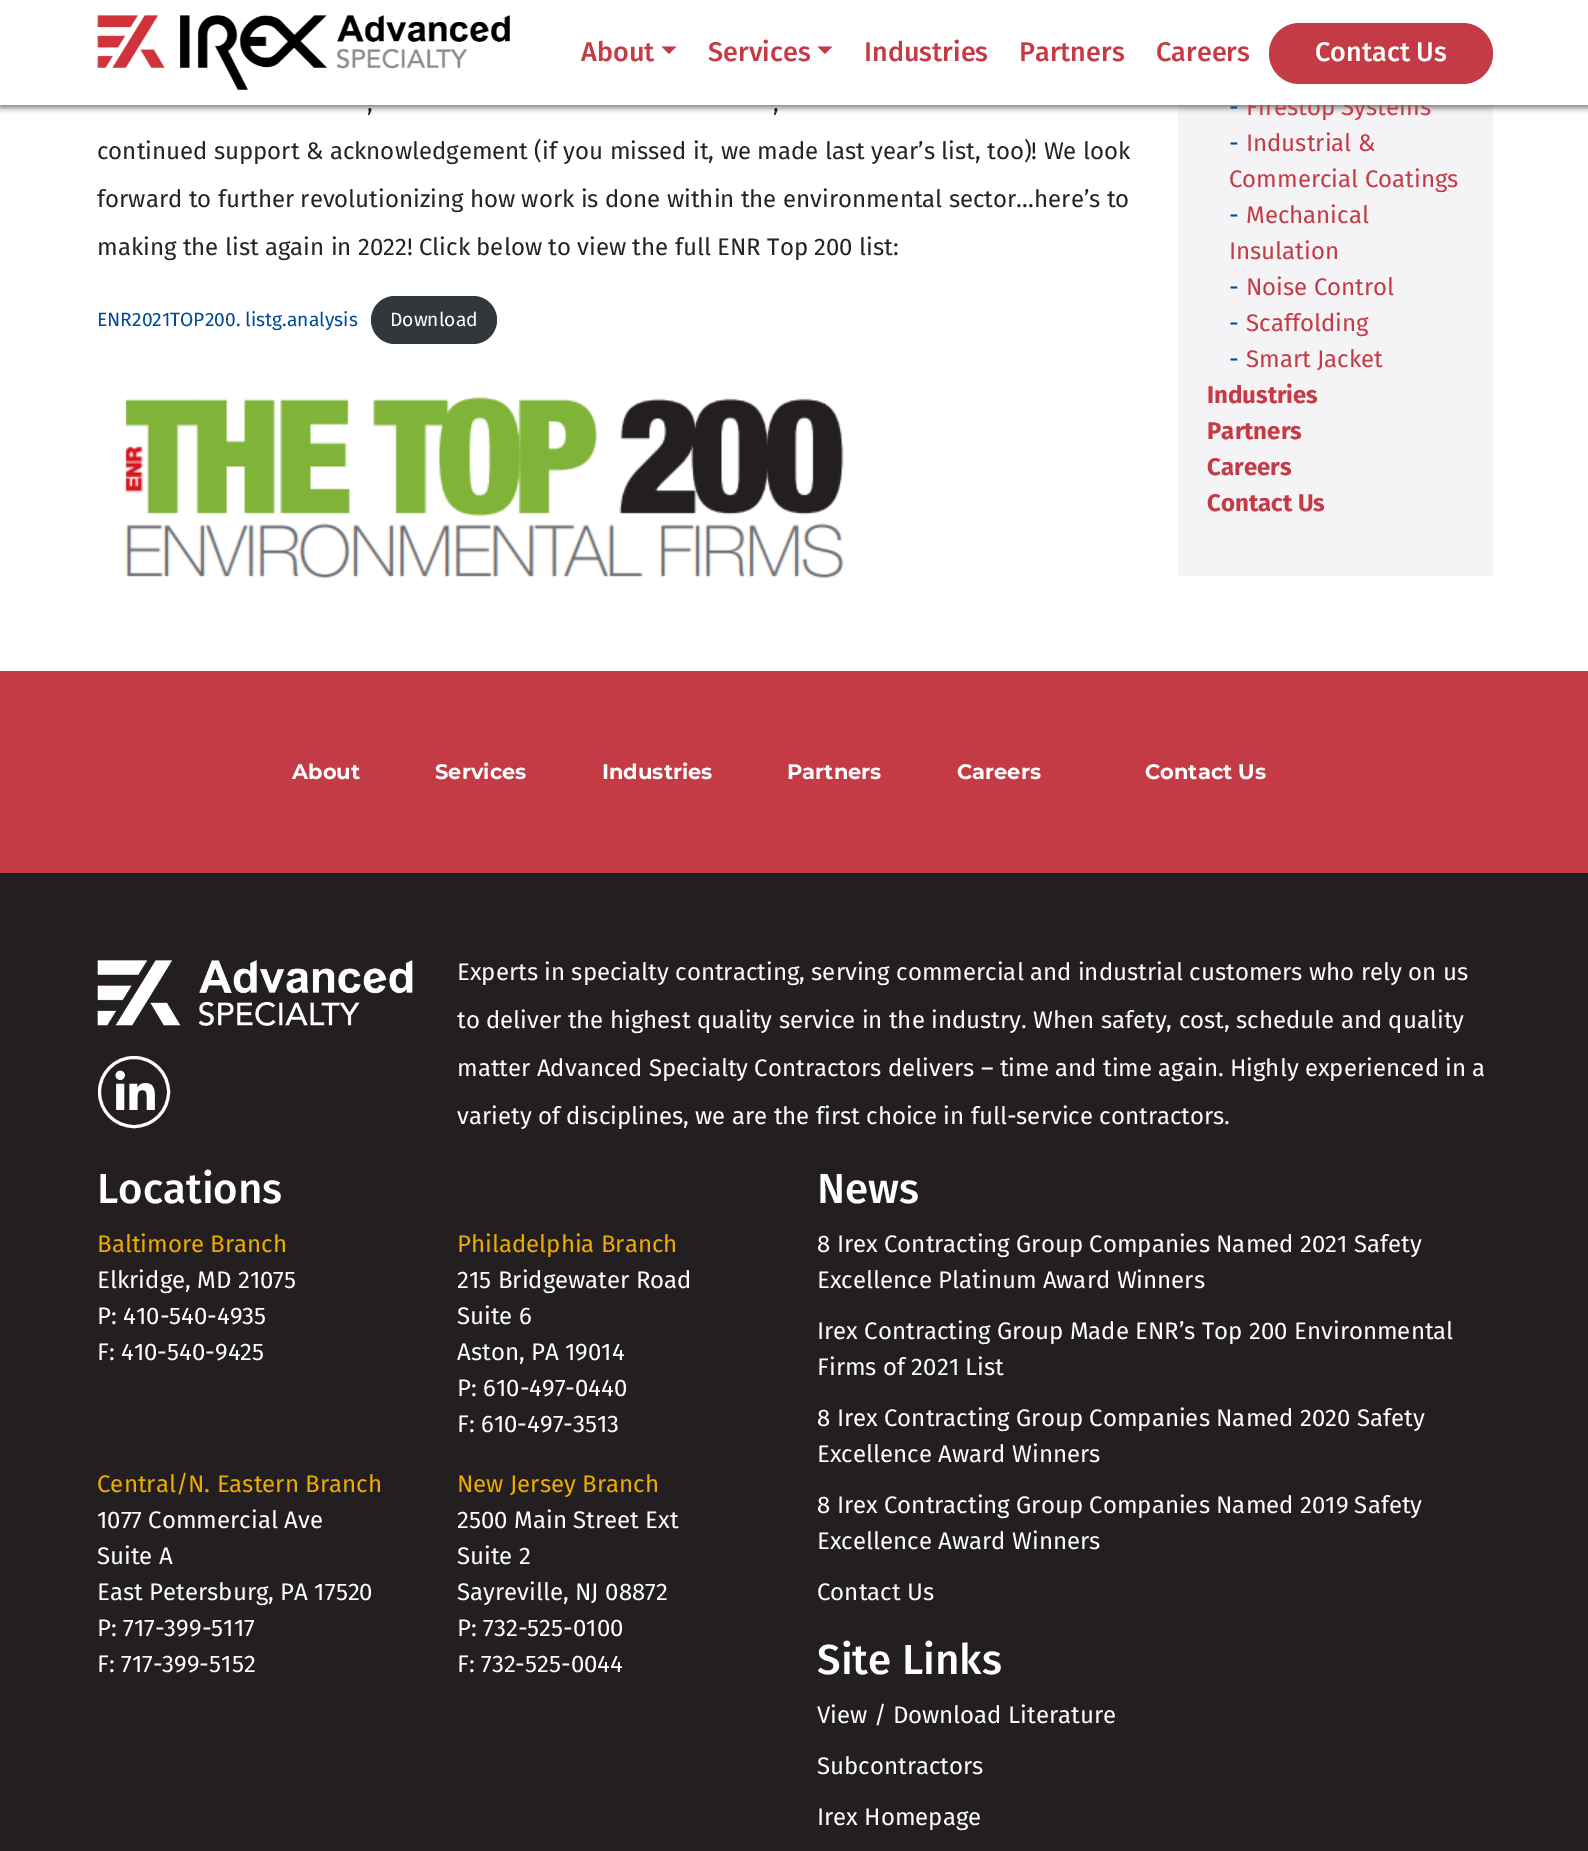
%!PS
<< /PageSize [1588 1851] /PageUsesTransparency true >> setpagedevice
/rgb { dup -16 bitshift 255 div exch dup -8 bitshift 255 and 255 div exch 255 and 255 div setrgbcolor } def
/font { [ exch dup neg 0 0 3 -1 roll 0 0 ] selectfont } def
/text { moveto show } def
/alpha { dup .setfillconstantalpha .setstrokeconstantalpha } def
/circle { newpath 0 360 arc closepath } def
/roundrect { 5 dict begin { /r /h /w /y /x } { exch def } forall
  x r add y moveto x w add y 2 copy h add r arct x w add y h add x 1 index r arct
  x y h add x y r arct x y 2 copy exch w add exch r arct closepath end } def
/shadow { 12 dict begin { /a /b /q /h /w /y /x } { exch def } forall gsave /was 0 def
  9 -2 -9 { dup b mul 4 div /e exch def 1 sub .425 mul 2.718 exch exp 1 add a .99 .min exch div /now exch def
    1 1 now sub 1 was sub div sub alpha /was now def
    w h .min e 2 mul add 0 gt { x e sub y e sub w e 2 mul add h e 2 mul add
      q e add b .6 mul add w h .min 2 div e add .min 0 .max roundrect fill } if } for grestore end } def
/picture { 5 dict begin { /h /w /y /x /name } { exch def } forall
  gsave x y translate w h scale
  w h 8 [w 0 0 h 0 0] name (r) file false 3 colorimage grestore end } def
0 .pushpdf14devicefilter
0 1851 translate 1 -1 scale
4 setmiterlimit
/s1 { /FiraSans-Regular 24 font 16#C43B45 rgb } def
/s2 { /FiraSans-Medium 27 font 16#C43B45 rgb } def
/s3 { /FiraSans-Medium 27 font 16#FFFFFF rgb } def
/s4 { /FiraSans-Regular 24 font 16#212529 rgb } def
/s5 { /FiraSans-Regular 19.25 font 16#004A97 rgb } def
/s6 { /FiraSans-Regular 19.25 font 16#FFFFFF rgb } def
/s7 { /FiraSans-Regular 24 font 16#004A97 rgb } def
/s8 { /FiraSans-Bold 24 font 16#C43B45 rgb } def
/s9 { /Montserrat-Bold 21 font 16#FFFFFF rgb } def
/s10 { /FiraSans-Regular 24 font 16#FFFFFF rgb } def
/s11 { /FiraSans-Medium 42 font 16#FFFFFF rgb } def
/s12 { /FiraSans-Regular 24 font 16#EDAA00 rgb } def
16#FFFFFF rgb
0 0 1588 1851 rectfill
16#F4F3F6 rgb
1178 105 315 471 rectfill
16#000000 rgb
0 3 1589 105 0 3 0.5 shadow
s1
(Firestop Systems) 1246 115 text
16#FFFFFF rgb
0 0 1588 105 rectfill
(pic1.raw) 97 15 413 75 picture
s2
(About) 581 61 text
661.5 46.5 moveto 676.5 46.5 lineto 669 54 lineto closepath fill
(Services) 708 61 text
817.5 46.5 moveto 832.5 46.5 lineto 825 54 lineto closepath fill
(Industries) 864 61 text
(Partners) 1019 61 text
(Careers) 1156 61 text
1269 23 224 61 30.5 roundrect fill
s3
(Contact Us) 1315 61 text
s4
(,) 367 111 text
(,) 773 111 text
(continued support & acknowledgement \(if you missed it, we made last year’s list, too\)! We look) 97 159 text
(forward to further revolutionizing how work is done within the environmental sector…here’s to) 97 207 text
(making the list again in 2022! Click below to view the full ENR Top 200 list:) 97 255 text
s5
(ENR2021TOP200. listg.analysis) 97 326 text
16#32373C rgb
371 296 126 48 24 roundrect fill
s6
(Download) 390 326 text
(pic2.raw) 125 397 719 181 picture
s7
(-) 1229 115 text
(-) 1229 151 text
s1
(Industrial &) 1246 151 text
(Commercial Coatings) 1229 187 text
s7
(-) 1229 223 text
s1
(Mechanical) 1246 223 text
(Insulation) 1229 259 text
s7
(-) 1229 295 text
s1
(Noise Control) 1246 295 text
s7
(-) 1229 331 text
s1
(Scaffolding) 1246 331 text
s7
(-) 1229 367 text
s1
(Smart Jacket) 1246 367 text
s8
(Industries) 1207 403 text
(Partners) 1207 439 text
(Careers) 1207 475 text
(Contact Us) 1207 511 text
0 671 1588 202 rectfill
s9
(About) 292 779 text
(Services) 435 779 text
(Industries) 602 779 text
(Partners) 787 779 text
(Careers) 957 779 text
(Contact Us) 1145 779 text
16#231F20 rgb
0 873 1588 978 rectfill
(pic3.raw) 97 960 316 66 picture
16#FFFFFF rgb
3 setlinewidth
134 1092 34.5 circle stroke
(pic4.raw) 115 1070 40 40 picture
s10
(Experts in specialty contracting, serving commercial and industrial customers who rely on us) 457 980 text
(to deliver the highest quality service in the industry. When safety, cost, schedule and quality) 457 1028 text
(matter Advanced Specialty Contractors delivers – time and time again. Highly experienced in a) 457 1076 text
(variety of disciplines, we are the first choice in full-service contractors.) 457 1124 text
s11
(Locations) 97 1203 text
s12
(Baltimore Branch) 97 1252 text
s10
(Elkridge, MD 21075) 97 1288 text
(P: 410-540-4935) 97 1324 text
(F: 410-540-9425) 97 1360 text
s12
(Philadelphia Branch) 457 1252 text
s10
(215 Bridgewater Road) 457 1288 text
(Suite 6) 457 1324 text
(Aston, PA 19014) 457 1360 text
(P: 610-497-0440) 457 1396 text
(F: 610-497-3513) 457 1432 text
s12
(Central/N. Eastern Branch) 97 1492 text
s10
(1077 Commercial Ave) 97 1528 text
(Suite A) 97 1564 text
(East Petersburg, PA 17520) 97 1600 text
(P: 717-399-5117) 97 1636 text
(F: 717-399-5152) 97 1672 text
s12
(New Jersey Branch) 457 1492 text
s10
(2500 Main Street Ext) 457 1528 text
(Suite 2) 457 1564 text
(Sayreville, NJ 08872) 457 1600 text
(P: 732-525-0100) 457 1636 text
(F: 732-525-0044) 457 1672 text
s11
(News) 817 1203 text
s10
(8 Irex Contracting Group Companies Named 2021 Safety) 817 1252 text
(Excellence Platinum Award Winners) 817 1288 text
(Irex Contracting Group Made ENR’s Top 200 Environmental) 817 1339 text
(Firms of 2021 List) 817 1375 text
(8 Irex Contracting Group Companies Named 2020 Safety) 817 1426 text
(Excellence Award Winners) 817 1462 text
(8 Irex Contracting Group Companies Named 2019 Safety) 817 1513 text
(Excellence Award Winners) 817 1549 text
(Contact Us) 817 1600 text
s11
(Site Links) 817 1674 text
s10
(View / Download Literature) 817 1723 text
(Subcontractors) 817 1774 text
(Irex Homepage) 817 1825 text
.poppdf14devicefilter showpage
